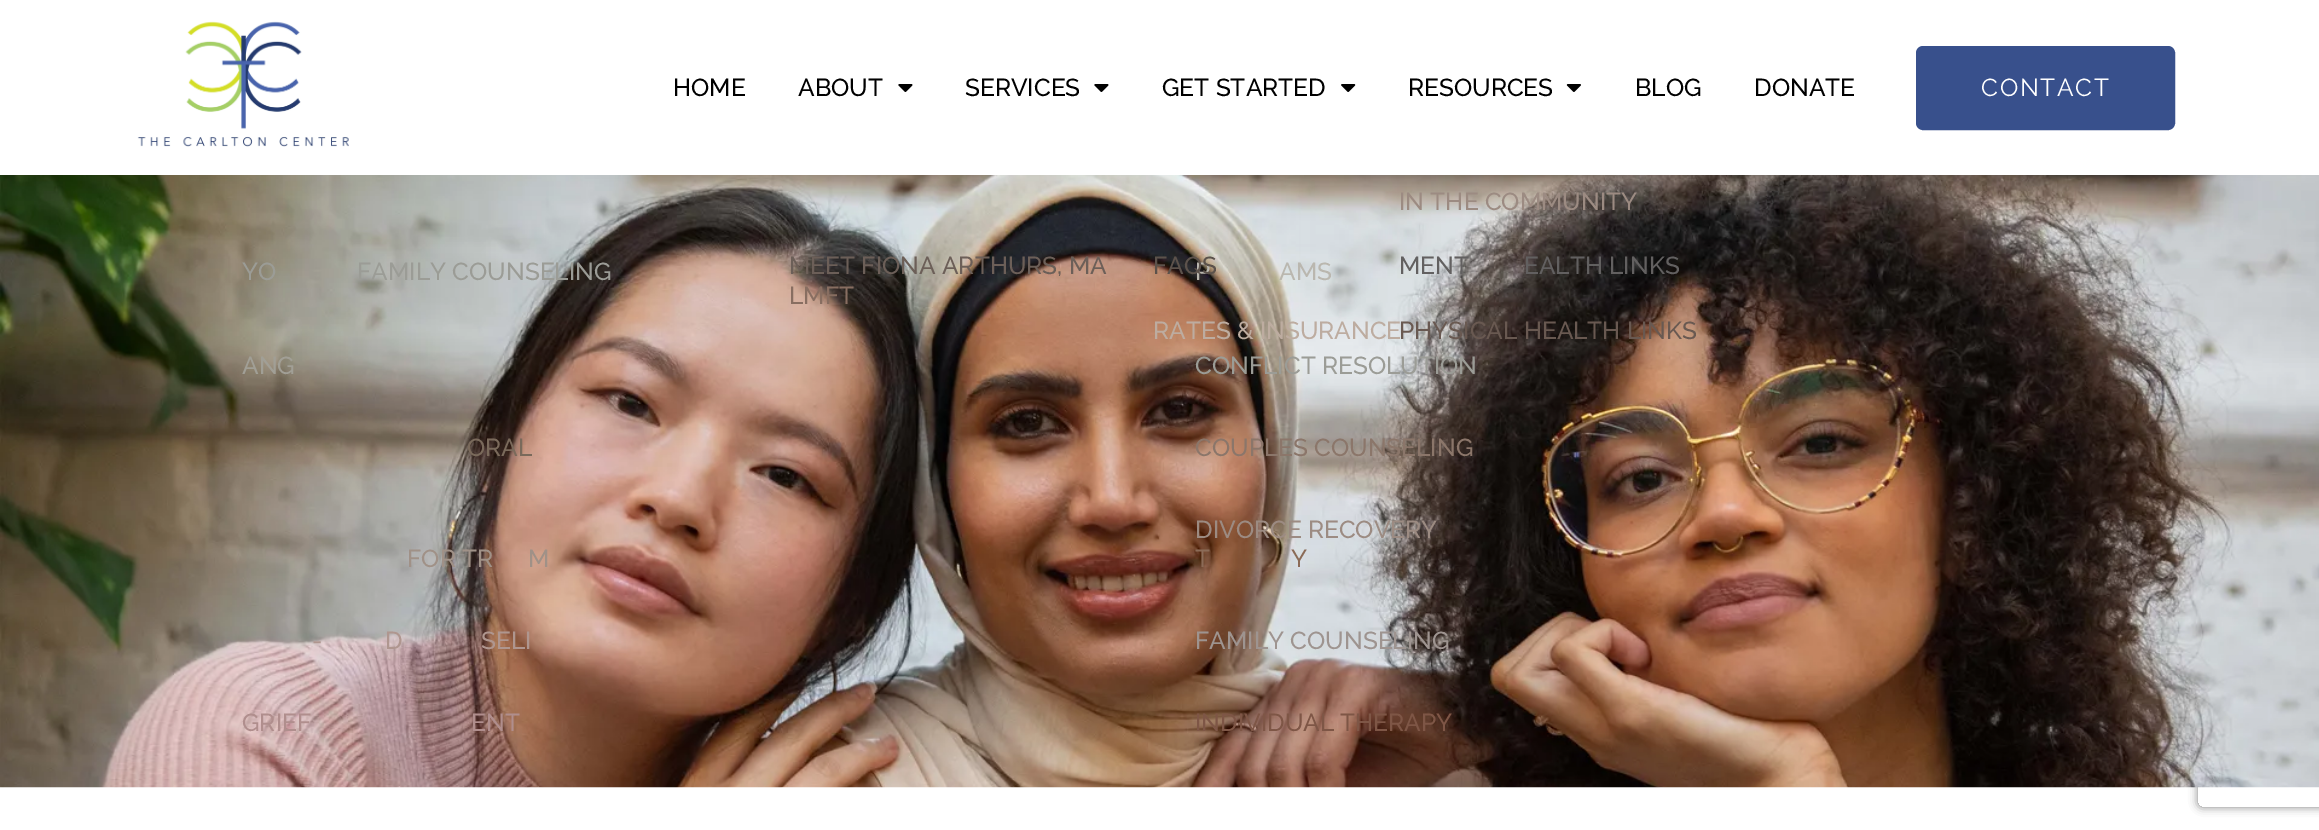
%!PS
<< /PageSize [2319 830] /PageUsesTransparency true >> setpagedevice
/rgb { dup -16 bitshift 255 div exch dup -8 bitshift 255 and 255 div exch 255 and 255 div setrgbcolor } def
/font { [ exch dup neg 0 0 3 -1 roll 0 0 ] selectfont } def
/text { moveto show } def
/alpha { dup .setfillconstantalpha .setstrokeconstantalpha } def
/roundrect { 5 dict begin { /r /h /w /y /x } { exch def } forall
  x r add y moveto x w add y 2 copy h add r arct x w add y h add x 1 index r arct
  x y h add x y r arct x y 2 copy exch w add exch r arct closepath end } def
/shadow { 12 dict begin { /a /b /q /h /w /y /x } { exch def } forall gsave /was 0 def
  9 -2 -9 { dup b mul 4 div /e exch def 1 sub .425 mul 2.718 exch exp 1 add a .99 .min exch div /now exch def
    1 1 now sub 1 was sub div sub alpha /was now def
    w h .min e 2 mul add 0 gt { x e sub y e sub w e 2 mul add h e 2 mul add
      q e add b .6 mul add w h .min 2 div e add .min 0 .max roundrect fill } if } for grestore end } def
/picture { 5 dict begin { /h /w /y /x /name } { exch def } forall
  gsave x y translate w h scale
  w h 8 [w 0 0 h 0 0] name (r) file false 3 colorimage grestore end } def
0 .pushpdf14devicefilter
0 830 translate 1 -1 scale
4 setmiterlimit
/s1 { /Raleway-Medium 24.5 font 16#000000 rgb } def
/s2 { /Raleway-Medium 24.5 font 16#9B9C96 rgb } def
/s3 { /Raleway-Medium 24.5 font 16#A19F96 rgb } def
/s4 { /Raleway-Medium 24.5 font 16#7A6A5B rgb } def
/s5 { /Raleway-Medium 24.5 font 16#A09187 rgb } def
/s6 { /Raleway-Medium 24.5 font 16#AF968F rgb } def
/s7 { /Raleway-Medium 24.5 font 16#B08E8D rgb } def
/s8 { /Raleway-Medium 24.5 font 16#BAB7AF rgb } def
/s9 { /Raleway-Medium 24.5 font 16#8B766A rgb } def
/s10 { /Raleway-Medium 24.5 font 16#9C8B82 rgb } def
/s11 { /Raleway-Medium 24.5 font 16#8B6B57 rgb } def
/s12 { /Raleway-Medium 24.5 font 16#9E9490 rgb } def
/s13 { /Raleway-Medium 24.5 font 16#7E5646 rgb } def
/s14 { /Raleway-Medium 24.5 font 16#6C5F58 rgb } def
/s15 { /Raleway-Medium 24.5 font 16#886E61 rgb } def
/s16 { /Raleway-Medium 24.5 font 16#5C524B rgb } def
/s17 { /Raleway-Medium 24.5 font 16#BDACA0 rgb } def
/s18 { /Raleway-Medium 24.5 font 16#626060 rgb } def
/s19 { /Raleway-Medium 24.5 font 16#695951 rgb } def
16#FFFFFF rgb
0 0 2319 830 rectfill
(pic1.raw) 137 21 212 126 picture
s1
(SERVICES) 965 96 text
(pic2.raw) 1094 84 15 8 picture
gsave
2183 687 moveto 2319 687 lineto 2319 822 lineto 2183 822 lineto closepath 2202 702 moveto 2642 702 lineto 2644 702 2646 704 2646 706 curveto 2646 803 lineto 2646 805 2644 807 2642 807 curveto 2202 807 lineto 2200 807 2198 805 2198 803 curveto 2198 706 lineto 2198 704 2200 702 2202 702 curveto closepath eoclip newpath
16#808080 rgb
2198 702 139 105 4 4.5 1 shadow
grestore
(pic5.raw) 0 175 2319 613 picture
s2
(YO) 242 280 text
(FAMILY COUNSELING) 357 280 text
s3
(ANG) 242 374 text
s4
(ORAL) 467 456 text
s5
(FOR TR) 407 567 text
(M) 528 567 text
s6
(-) 312 649 text
(D) 385 649 text
(SELI) 481 649 text
s7
(GRIEF) 242 731 text
(ENT) 471 731 text
s8
(P) 1195 280 text
(AMS) 1279 280 text
s2
(CONFLICT RESOLUTION) 1195 374 text
s9
(COUPLES COUNSELING) 1195 456 text
s10
(DIVORCE RECOVERY) 1195 538 text
s11
(T) 1195 567 text
(Y) 1291 567 text
s12
(FAMILY COUNSELING) 1195 649 text
s13
(INDIVIDUAL THERAPY) 1195 731 text
s1
(HOME) 673 96 text
(ABOUT) 798 96 text
(pic2.raw) 898 84 15 8 picture
s14
(MEET FIONA ARTHURS, MA) 789 274 text
s15
(LMFT) 789 304 text
s1
(GET STARTED) 1162 96 text
(pic3.raw) 1341 84 15 8 picture
s16
(FAQS) 1153 274 text
s17
(RATES & INSURANCE) 1153 339 text
s1
(RESOURCES) 1408 96 text
(pic4.raw) 1566 84 15 8 picture
s10
(IN THE COMMUNITY) 1399 210 text
s18
(MENT) 1399 274 text
(EALTH LINKS) 1524 274 text
s19
(PHYSICAL HEALTH LINKS) 1399 339 text
s1
(BLOG) 1635 96 text
(DONATE) 1754 96 text
16#38508C rgb
1918 48 255 80 5 roundrect gsave fill grestore
4 setlinewidth
stroke
/Raleway-Regular 24.5 font
16#FFFFFF rgb
1981 96 moveto 1.75 0 (CONTACT) ashow
.poppdf14devicefilter showpage
